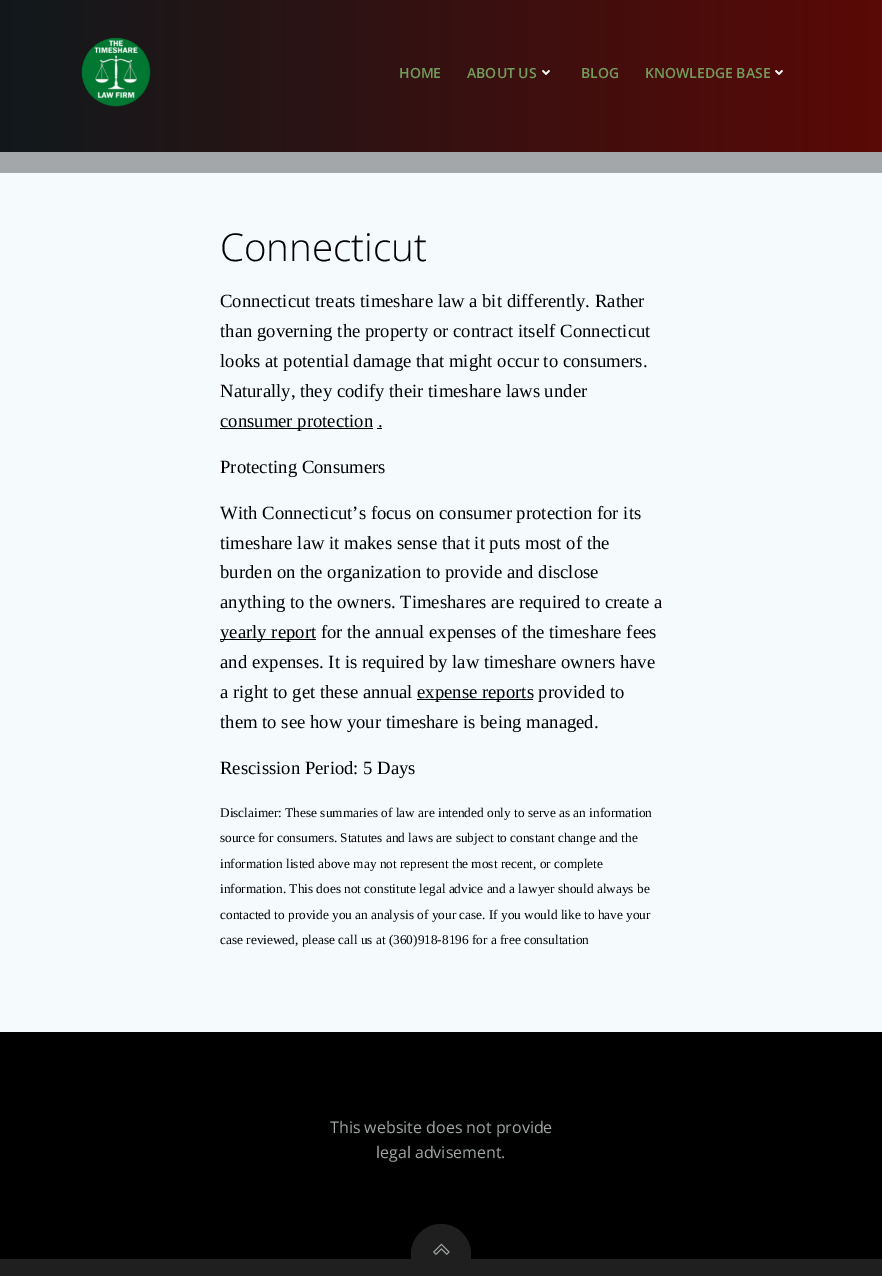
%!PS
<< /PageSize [882 1276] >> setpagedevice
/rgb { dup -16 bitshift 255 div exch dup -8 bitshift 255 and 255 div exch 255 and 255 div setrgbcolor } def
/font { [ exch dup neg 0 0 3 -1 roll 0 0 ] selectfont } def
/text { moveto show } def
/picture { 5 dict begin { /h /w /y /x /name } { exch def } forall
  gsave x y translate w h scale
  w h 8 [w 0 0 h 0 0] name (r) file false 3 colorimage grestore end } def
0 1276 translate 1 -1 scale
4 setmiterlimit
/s1 { /OpenSans-SemiBold 14 font 16#749C5C rgb } def
/s2 { /OpenSans-Light 38.5 font 16#000000 rgb } def
/s3 { /LiberationSerif-Regular 18.7 font 16#000000 rgb } def
/s4 { /LiberationSerif-Regular 13.3 font 16#000000 rgb } def
/s5 { /OpenSans-Regular 16 font 16#A0A7A4 rgb } def
16#FFFFFF rgb
0 0 882 1276 rectfill
gsave 0 0 moveto 882 0 lineto 882 152 lineto 0 152 lineto closepath clip newpath
<< /ShadingType 2 /ColorSpace /DeviceRGB /Coords [-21 76 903 76] /Extend [true true] /Function << /FunctionType 2 /Domain [0 1] /C0 [0.059 0.098 0.11] /C1 [0.361 0.035 0.02] /N 1 >> >> shfill grestore
(pic1.raw) 81 37 70 70 picture
s1
(HOME) 399 78 text
(ABOUT US) 467 78 text
(pic2.raw) 542 70 8 5 picture
(BLOG) 581 78 text
(KNOWLEDGE BASE) 645 78 text
(pic3.raw) 775 70 8 5 picture
16#F5FAFD rgb
0 173 882 859 rectfill
16#A4A7AA rgb
0 152 882 21 rectfill
s2
(Connecticut) 220 261 text
s3
(Connecticut treats timeshare law a bit differently. Rather) 220 307 text
(than governing the property or contract itself Connecticut) 220 337 text
(looks at potential damage that might occur to consumers.) 220 367 text
(Naturally, they codify their timeshare laws under) 220 397 text
220 428 153 1 rectfill
(consumer protection .) 220 427 text
377 428 5 1 rectfill
(Protecting Consumers) 220 473 text
(With Connecticut’s focus on consumer protection for its) 220 519 text
(timeshare law it makes sense that it puts most of the) 220 549 text
(burden on the organization to provide and disclose) 220 578 text
(anything to the owners. Timeshares are required to create a) 220 608 text
220 639 96 1 rectfill
(yearly report for the annual expenses of the timeshare fees) 220 638 text
(and expenses. It is required by law timeshare owners have) 220 668 text
(a right to get these annual) 220 698 text
417 699 116 1 rectfill
(expense reports provided to) 417 698 text
(them to see how your timeshare is being managed.) 220 728 text
(Rescission Period: 5 Days) 220 774 text
s4
(Disclaimer: These summaries of law are intended only to serve as an information) 220 817 text
(source for consumers. Statutes and laws are subject to constant change and the) 220 842 text
(information listed above may not represent the most recent, or complete) 220 868 text
(information. This does not constitute legal advice and a lawyer should always be) 220 893 text
(contacted to provide you an analysis of your case. If you would like to have your) 220 919 text
(case reviewed, please call us at \(360\)918-8196 for a free consultation) 220 944 text
0 1032 882 227 rectfill
s5
(This website does not provide) 330 1133 text
(legal advisement.) 376 1158 text
16#1F1F1F rgb
441 1224 moveto 457.5 1224 471 1237.5 471 1254 curveto 471 1259 lineto 411 1259 lineto 411 1254 lineto 411 1237.5 424.5 1224 441 1224 curveto closepath fill
(pic4.raw) 433 1243 17 12 picture
0 1259 882 17 rectfill
showpage
